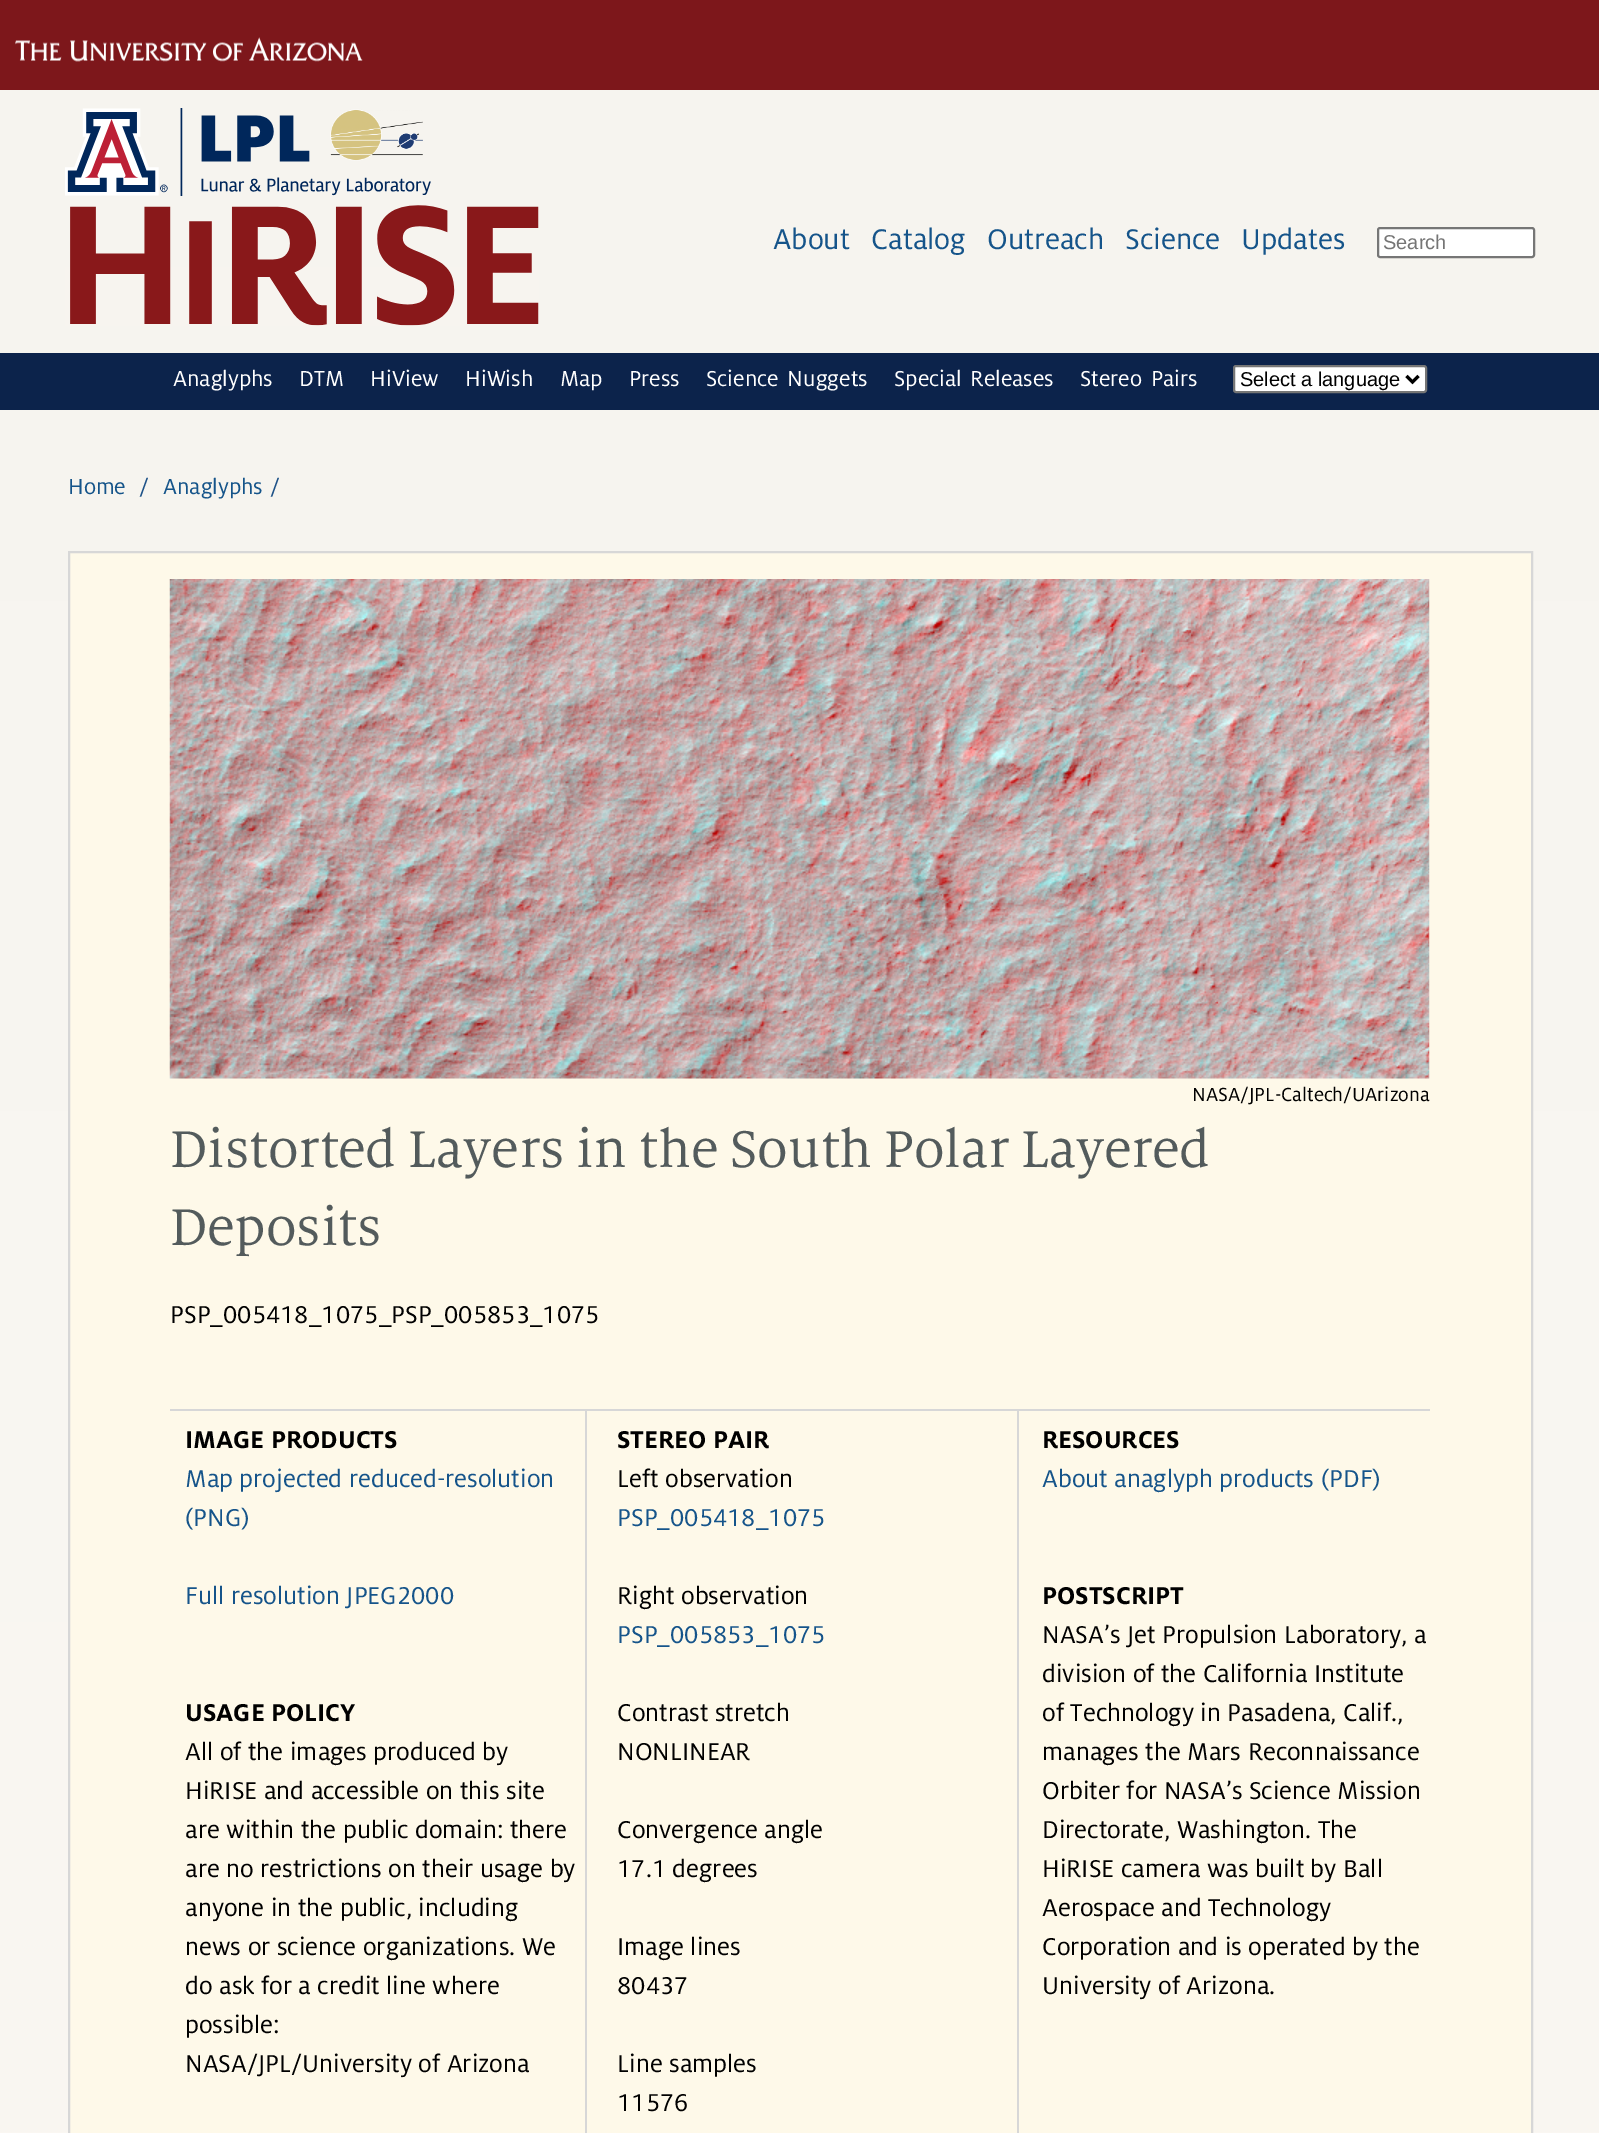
%!PS
<< /PageSize [1599 2133] >> setpagedevice
/rgb { dup -16 bitshift 255 div exch dup -8 bitshift 255 and 255 div exch 255 and 255 div setrgbcolor } def
/font { [ exch dup neg 0 0 3 -1 roll 0 0 ] selectfont } def
/text { moveto show } def
/roundrect { 5 dict begin { /r /h /w /y /x } { exch def } forall
  x r add y moveto x w add y 2 copy h add r arct x w add y h add x 1 index r arct
  x y h add x y r arct x y 2 copy exch w add exch r arct closepath end } def
/picture { 5 dict begin { /h /w /y /x /name } { exch def } forall
  gsave x y translate w h scale
  w h 8 [w 0 0 h 0 0] name (r) file false 3 colorimage grestore end } def
0 2133 translate 1 -1 scale
4 setmiterlimit
/s1 { /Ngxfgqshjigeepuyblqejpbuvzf-Regular 31.5 font 16#15548A rgb } def
/s2 { /LiberationSans-Regular 20 font 16#757575 rgb } def
/s3 { /Ngxfgqshjigeepuyblqejpbuvzf-Regular 24 font 16#FFFFFF rgb } def
/s4 { /LiberationSans-Regular 20 font 16#000000 rgb } def
/s5 { /Ngxfgqshjigeepuyblqejpbuvzf-Regular 24 font 16#15548A rgb } def
/s6 { /Ngxfgqshjigeepuyblqejpbuvzf-Regular 24 font 16#1E5288 rgb } def
/s7 { /Ngxfgqshjigeepuyblqejpbuvzf-Regular 21 font 16#000000 rgb } def
/s8 { /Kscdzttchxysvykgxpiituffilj-Regular 57 font 16#535B5C rgb } def
/s9 { /Ngxfgqshjigeepuyblqejpbuvzf-Regular 27 font 16#000000 rgb } def
/s10 { /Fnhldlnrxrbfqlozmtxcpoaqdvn-Bold 27 font 16#000000 rgb } def
/s11 { /Ngxfgqshjigeepuyblqejpbuvzf-Regular 27 font 16#15548A rgb } def
16#FFFFFF rgb
0 0 1599 2133 rectfill
gsave 0 90 moveto 1599 90 lineto 1599 2133 lineto 0 2133 lineto closepath clip newpath
<< /ShadingType 2 /ColorSpace /DeviceRGB /Coords [0 0 0 2133] /Extend [true true] /Function << /FunctionType 2 /Domain [0 1] /C0 [0.965 0.957 0.937] /C1 [0.98 0.969 0.949] /N 1 >> >> shfill grestore
16#7D171B rgb
0 0 1599 90 rectfill
(pic1.raw) 15 37 348 25 picture
(pic2.raw) 65 108 474 218 picture
s1
(About) 773 249 text
(Catalog) 871 249 text
(Outreach) 987 249 text
(Science) 1125 249 text
(Updates) 1241 249 text
16#FFFFFF rgb
1378 228 156 29 2 roundrect gsave fill grestore
16#767676 rgb
2 setlinewidth
stroke
s2
(Search) 1383 249 text
16#0C234B rgb
0 353 1599 57 rectfill
s3
(Anaglyphs) 173 386 text
(DTM) 299 386 text
(HiView) 370 386 text
(HiWish) 465 386 text
(Map) 560 386 text
(Press) 629 386 text
706 386 moveto 3 0 32 (Science Nuggets) widthshow
894 386 moveto 3 0 32 (Special Releases) widthshow
1080 386 moveto 3 0 32 (Stereo Pairs) widthshow
1234 366 192 26 2 roundrect gsave fill grestore
16#767676 rgb
stroke
16#000000 rgb
3 setlinewidth
1406.5 376 moveto 1412.5 382 lineto 1418.5 376 lineto stroke
s4
(Select a language) 1240 386 text
s5
(Home) 68 494 text
s6
(/) 139 494 text
s5
(Anaglyphs) 163 494 text
s6
(/) 270 494 text
16#FEF9E9 rgb
69 552 moveto 1532 552 lineto 1532 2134 lineto 69 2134 lineto closepath gsave fill grestore
16#D7D7D7 rgb
2 setlinewidth
stroke
(pic3.raw) 169 579 1261 500 picture
s7
(NASA/JPL-Caltech/UArizona) 1192 1101 text
s8
(Distorted Layers in the South Polar Layered) 170 1167 text
(Deposits) 170 1245 text
s9
(PSP_005418_1075_PSP_005853_1075) 170 1323 text
16#D7D7D7 rgb
170 1409 1260 2 rectfill
585 1410 2 723 rectfill
s10
(IMAGE PRODUCTS) 185 1448 text
s11
(Map projected reduced-resolution) 185 1487 text
(\(PNG\)) 185 1526 text
(Full resolution JPEG2000) 185 1604 text
s10
(USAGE POLICY) 185 1721 text
s9
(All of the images produced by) 185 1760 text
(HiRISE and accessible on this site) 185 1799 text
(are within the public domain: there) 185 1838 text
(are no restrictions on their usage by) 185 1877 text
(anyone in the public, including) 185 1916 text
(news or science organizations. We) 185 1955 text
(do ask for a credit line where) 185 1994 text
(possible:) 185 2033 text
(NASA/JPL/University of Arizona) 185 2072 text
16#D7D7D7 rgb
1017 1410 2 723 rectfill
s10
(STEREO PAIR) 617 1448 text
s9
(Left observation) 617 1487 text
s11
(PSP_005418_1075) 617 1526 text
s9
(Right observation) 617 1604 text
s11
(PSP_005853_1075) 617 1643 text
s9
(Contrast stretch) 617 1721 text
(NONLINEAR) 617 1760 text
(Convergence angle) 617 1838 text
(17.1 degrees) 617 1877 text
(Image lines) 617 1955 text
(80437) 617 1994 text
(Line samples) 617 2072 text
(11576) 617 2111 text
s10
(RESOURCES) 1042 1448 text
s11
(About anaglyph products \(PDF\)) 1042 1487 text
s10
(POSTSCRIPT) 1042 1604 text
s9
(NASA’s Jet Propulsion Laboratory, a) 1042 1643 text
(division of the California Institute) 1042 1682 text
(of Technology in Pasadena, Calif.,) 1042 1721 text
(manages the Mars Reconnaissance) 1042 1760 text
(Orbiter for NASA’s Science Mission) 1042 1799 text
(Directorate, Washington. The) 1042 1838 text
(HiRISE camera was built by Ball) 1042 1877 text
(Aerospace and Technology) 1042 1916 text
(Corporation and is operated by the) 1042 1955 text
(University of Arizona.) 1042 1994 text
showpage
